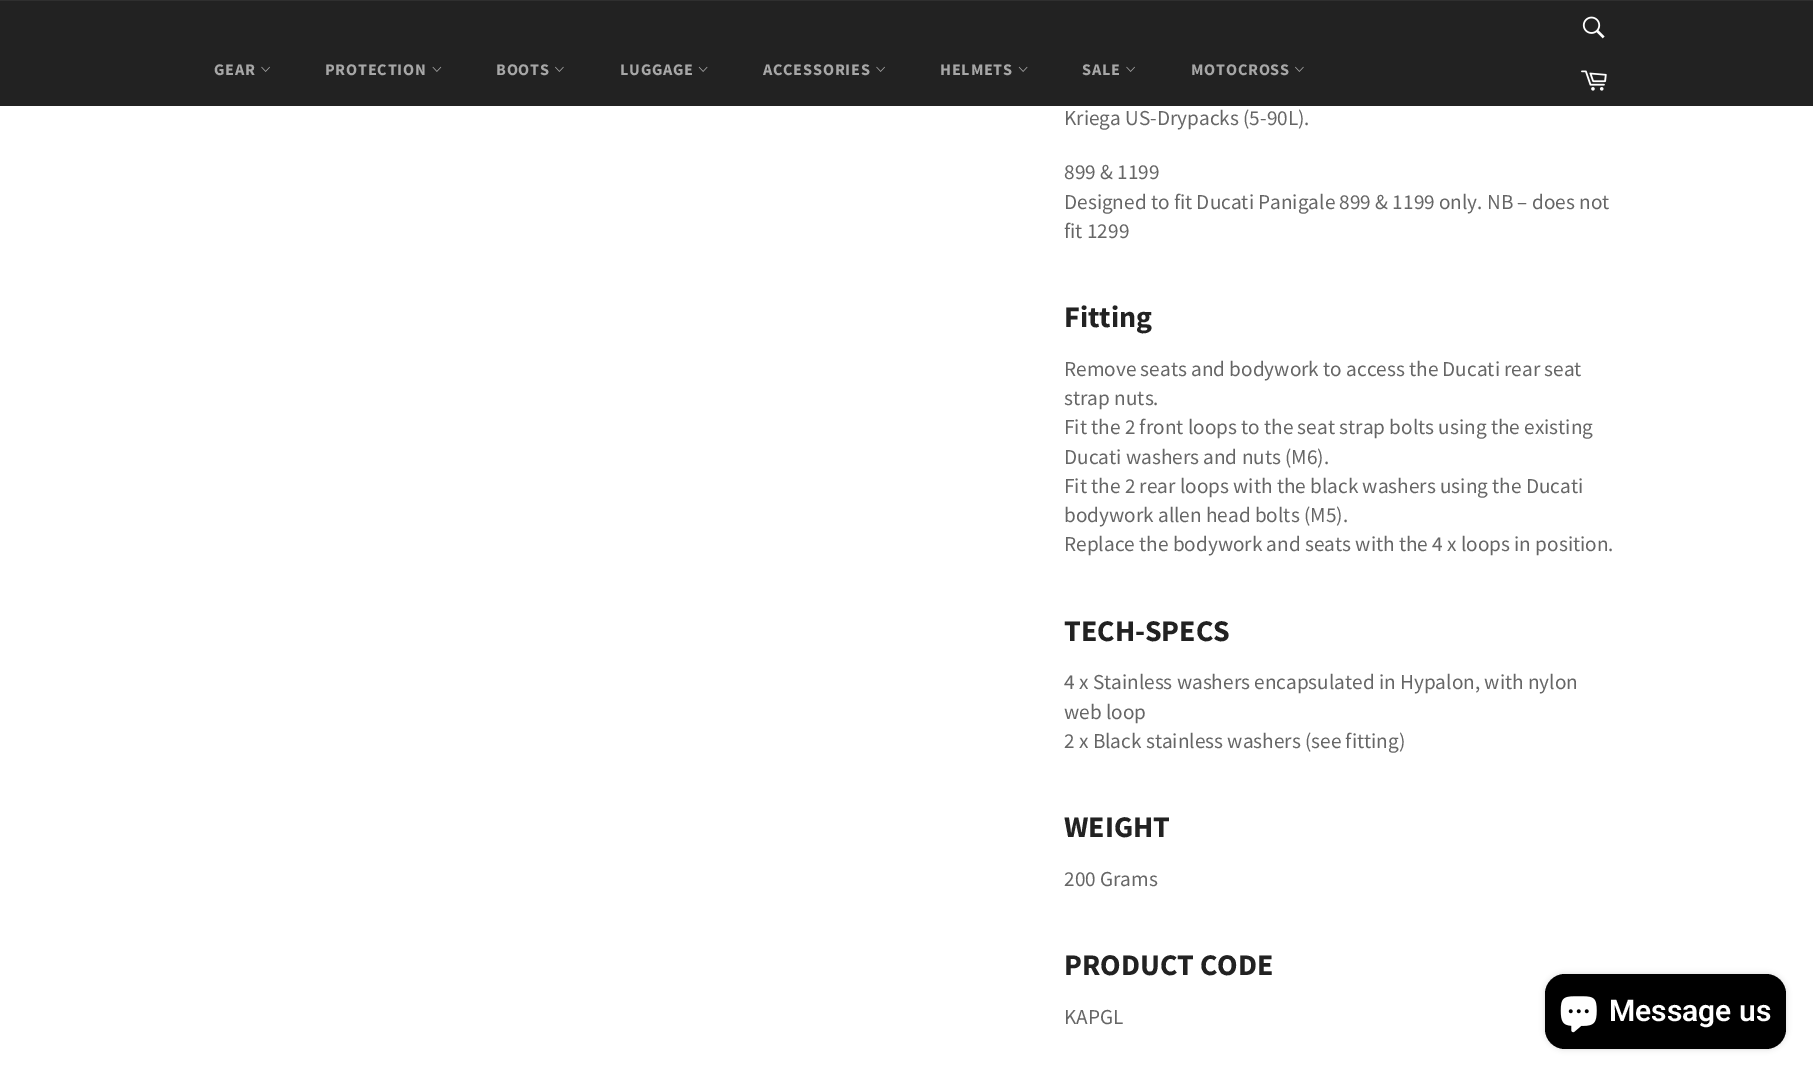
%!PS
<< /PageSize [1813 1075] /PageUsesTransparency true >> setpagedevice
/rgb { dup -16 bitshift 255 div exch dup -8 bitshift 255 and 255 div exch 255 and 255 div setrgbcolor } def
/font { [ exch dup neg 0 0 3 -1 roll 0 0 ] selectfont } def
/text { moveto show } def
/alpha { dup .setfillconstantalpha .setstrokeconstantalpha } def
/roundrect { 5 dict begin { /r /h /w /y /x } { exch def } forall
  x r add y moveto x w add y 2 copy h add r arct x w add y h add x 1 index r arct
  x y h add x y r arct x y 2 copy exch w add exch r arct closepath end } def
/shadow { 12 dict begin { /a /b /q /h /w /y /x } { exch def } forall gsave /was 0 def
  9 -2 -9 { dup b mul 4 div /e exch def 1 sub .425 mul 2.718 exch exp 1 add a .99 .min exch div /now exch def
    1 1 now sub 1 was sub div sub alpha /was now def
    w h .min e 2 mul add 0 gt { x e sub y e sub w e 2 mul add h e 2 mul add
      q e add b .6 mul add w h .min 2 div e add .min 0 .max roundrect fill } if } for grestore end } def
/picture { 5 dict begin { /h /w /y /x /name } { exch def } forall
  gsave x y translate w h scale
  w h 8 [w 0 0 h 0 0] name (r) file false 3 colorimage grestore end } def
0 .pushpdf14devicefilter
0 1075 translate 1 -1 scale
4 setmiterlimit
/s1 { /SourceSansPro-Regular 21.25 font 16#666666 rgb } def
/s2 { /SourceSansPro-Bold 30 font 16#222222 rgb } def
/s3 { /Roboto-SemiBold 30 font 16#FFFFFF rgb } def
16#FFFFFF rgb
0 0 1813 1075 rectfill
16#222222 rgb
0 1 1813 105 rectfill
16#2F2F2F rgb
0 0 1813 1 rectfill
/SourceSansPro-Bold 16.25 font
16#A7A7A7 rgb
214 75 moveto 0.75 0 (GEAR) ashow
(pic1.raw) 261 66 9 6 picture
325 75 moveto 0.75 0 (PROTECTION) ashow
(pic2.raw) 432 66 10 6 picture
496 75 moveto 0.75 0 (BOOTS) ashow
(pic3.raw) 555 66 9 6 picture
620 75 moveto 0.75 0 (LUGGAGE) ashow
(pic4.raw) 698 66 10 6 picture
763 75 moveto 0.75 0 (ACCESSORIES) ashow
(pic1.raw) 876 66 9 6 picture
940 75 moveto 0.75 0 (HELMETS) ashow
(pic4.raw) 1018 66 10 6 picture
1082 75 moveto 0.75 0 (SALE) ashow
(pic1.raw) 1126 66 9 6 picture
1191 75 moveto 0.75 0 (MOTOCROSS) ashow
(pic3.raw) 1295 66 9 6 picture
(pic5.raw) 1582 16 23 23 picture
(pic6.raw) 1581 70 26 21 picture
s1
(Kriega US-Drypacks \(5-90L\).) 1064 125 text
(899 & 1199) 1064 179 text
(Designed to fit Ducati Panigale 899 & 1199 only. NB – does not) 1064 209 text
(fit 1299) 1064 238 text
s2
(Fitting) 1064 327 text
s1
(Remove seats and bodywork to access the Ducati rear seat) 1064 376 text
(strap nuts.) 1064 405 text
(Fit the 2 front loops to the seat strap bolts using the existing) 1064 434 text
(Ducati washers and nuts \(M6\).) 1064 464 text
(Fit the 2 rear loops with the black washers using the Ducati) 1064 493 text
(bodywork allen head bolts \(M5\).) 1064 522 text
(Replace the bodywork and seats with the 4 x loops in position.) 1064 551 text
s2
(TECH-SPECS) 1064 641 text
s1
(4 x Stainless washers encapsulated in Hypalon, with nylon) 1064 689 text
(web loop) 1064 719 text
(2 x Black stainless washers \(see fitting\)) 1064 748 text
s2
(WEIGHT) 1064 837 text
s1
(200 Grams) 1064 886 text
s2
(PRODUCT CODE) 1064 975 text
s1
(KAPGL) 1064 1024 text
16#000000 rgb
1545 974 241 75 20 3 0.15 shadow
1545 974 241 75 20 roundrect fill
(pic7.raw) 1560 996 37 37 picture
s3
(Message us) 1609 1021 text
.poppdf14devicefilter showpage
